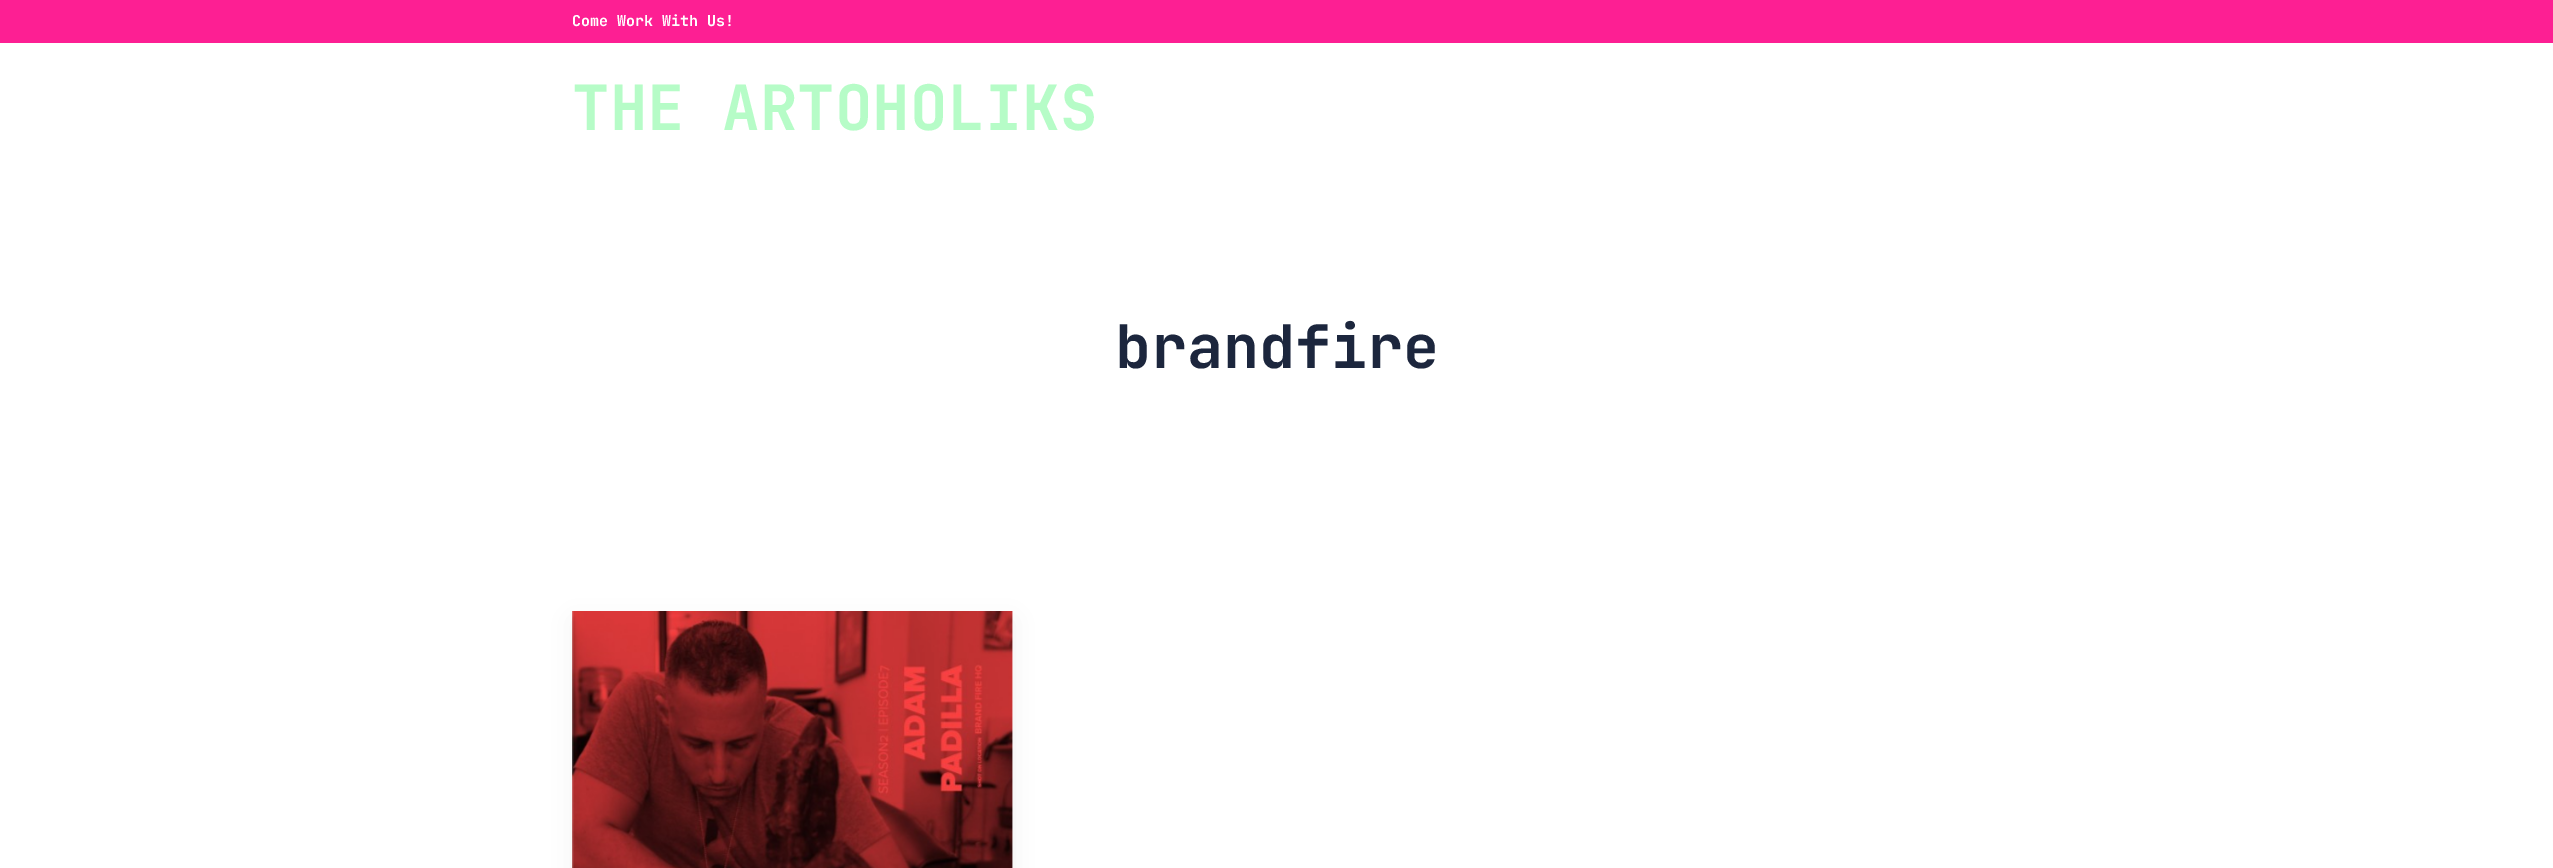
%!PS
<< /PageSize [2553 868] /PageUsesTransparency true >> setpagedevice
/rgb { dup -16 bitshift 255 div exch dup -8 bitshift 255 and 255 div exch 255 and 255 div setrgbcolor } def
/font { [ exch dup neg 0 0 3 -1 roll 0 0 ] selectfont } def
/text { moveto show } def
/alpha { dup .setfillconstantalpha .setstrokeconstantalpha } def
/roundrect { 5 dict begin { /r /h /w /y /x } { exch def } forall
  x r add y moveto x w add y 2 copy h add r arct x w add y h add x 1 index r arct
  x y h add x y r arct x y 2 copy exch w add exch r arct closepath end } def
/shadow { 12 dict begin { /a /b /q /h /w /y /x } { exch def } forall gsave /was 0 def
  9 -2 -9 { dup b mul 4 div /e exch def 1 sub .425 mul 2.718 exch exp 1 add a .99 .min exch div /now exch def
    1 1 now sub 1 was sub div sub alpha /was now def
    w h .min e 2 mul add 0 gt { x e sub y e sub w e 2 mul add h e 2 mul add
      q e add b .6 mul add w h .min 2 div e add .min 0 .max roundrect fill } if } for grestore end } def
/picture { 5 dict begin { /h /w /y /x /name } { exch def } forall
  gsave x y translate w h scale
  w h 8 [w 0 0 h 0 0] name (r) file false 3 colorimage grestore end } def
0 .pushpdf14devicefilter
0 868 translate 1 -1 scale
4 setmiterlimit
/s1 { /JetBrainsMono-Bold 15 font 16#FFFFFF rgb } def
/s2 { /JetBrainsMono-Bold 62.5 font 16#B6FCC7 rgb } def
/s3 { /JetBrainsMono-Bold 60 font 16#1C263D rgb } def
16#FFFFFF rgb
0 0 2553 868 rectfill
16#FD1F93 rgb
0 0 2553 43 rectfill
s1
(Come Work With Us!) 572 26 text
s2
(THE ARTOHOLIKS) 572 130 text
s3
(brandfire) 1115 368 text
16#000000 rgb
573 620 440 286 0 12.5 0.05 shadow
16#FFFFFF rgb
573 611 440 257 rectfill
(pic1.raw) 572 611 441 257 picture
.poppdf14devicefilter showpage
